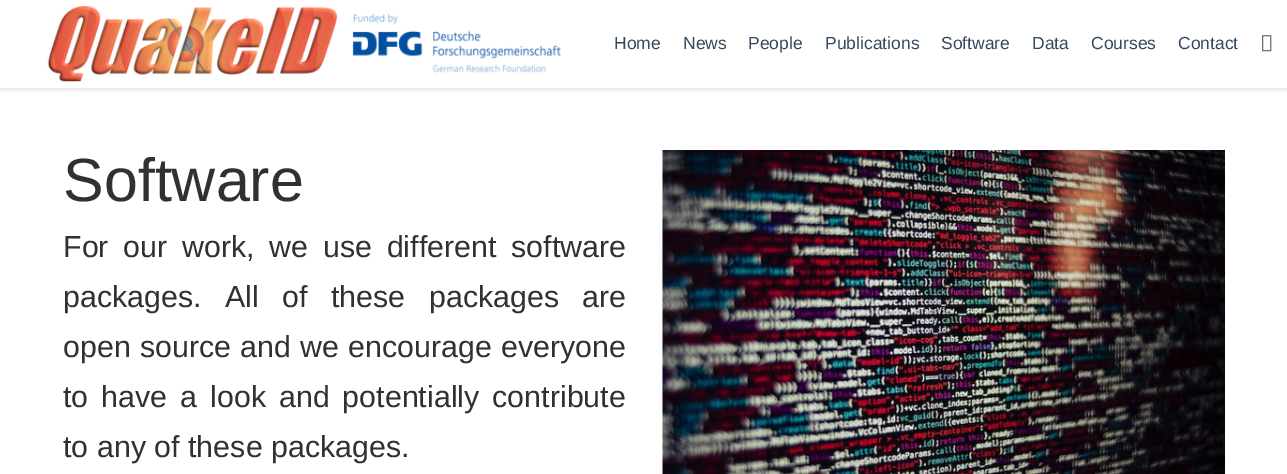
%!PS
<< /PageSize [1287 474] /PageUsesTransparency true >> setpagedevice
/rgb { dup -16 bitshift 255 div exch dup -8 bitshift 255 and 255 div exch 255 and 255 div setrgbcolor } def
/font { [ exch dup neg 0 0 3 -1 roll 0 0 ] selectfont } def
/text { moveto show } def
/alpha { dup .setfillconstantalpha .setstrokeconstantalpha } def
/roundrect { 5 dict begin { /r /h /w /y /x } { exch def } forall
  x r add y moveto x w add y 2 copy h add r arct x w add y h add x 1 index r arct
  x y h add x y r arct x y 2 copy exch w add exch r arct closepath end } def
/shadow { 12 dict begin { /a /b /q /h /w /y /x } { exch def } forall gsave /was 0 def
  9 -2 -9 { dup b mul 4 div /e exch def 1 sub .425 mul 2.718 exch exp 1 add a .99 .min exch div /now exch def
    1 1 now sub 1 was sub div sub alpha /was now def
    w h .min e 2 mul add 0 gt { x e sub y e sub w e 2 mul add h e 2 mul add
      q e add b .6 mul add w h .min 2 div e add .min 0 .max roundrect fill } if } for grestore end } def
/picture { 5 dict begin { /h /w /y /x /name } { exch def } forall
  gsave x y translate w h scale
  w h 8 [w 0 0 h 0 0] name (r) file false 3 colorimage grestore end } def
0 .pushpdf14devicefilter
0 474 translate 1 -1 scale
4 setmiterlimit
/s1 { /LiberationSans-Regular 17.5 font 16#34495E rgb } def
/s2 { /LiberationSans-Regular 61 font 16#313131 rgb } def
/s3 { /LiberationSans-Regular 30.4 font 16#313131 rgb } def
16#FFFFFF rgb
0 0 1287 474 rectfill
16#000000 rgb
0 3 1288 87 0 3 0.11 shadow
16#FFFFFF rgb
0 0 1287 88 rectfill
(pic1.raw) 47 6 514 76 picture
s1
(Home) 614 49 text
(News) 683 49 text
(People) 748 49 text
(Publications) 825 49 text
(Software) 941 49 text
(Data) 1032 49 text
(Courses) 1091 49 text
(Contact) 1178 49 text
(pic2.raw) 1262 35 10 17 picture
s2
(Software) 63 201 text
/LiberationSans-Regular 30.4 font
63 257 moveto 6.25 0 32 (For our work, we use different software) widthshow
63 307 moveto 15 0 32 (packages. All of these packages are) widthshow
63 357 moveto 0.75 0 32 (open source and we encourage everyone) widthshow
63 407 moveto 4.5 0 32 (to have a look and potentially contribute) widthshow
(to any of these packages.) 63 457 text
(pic3.raw) 662 150 563 324 picture
.poppdf14devicefilter showpage
